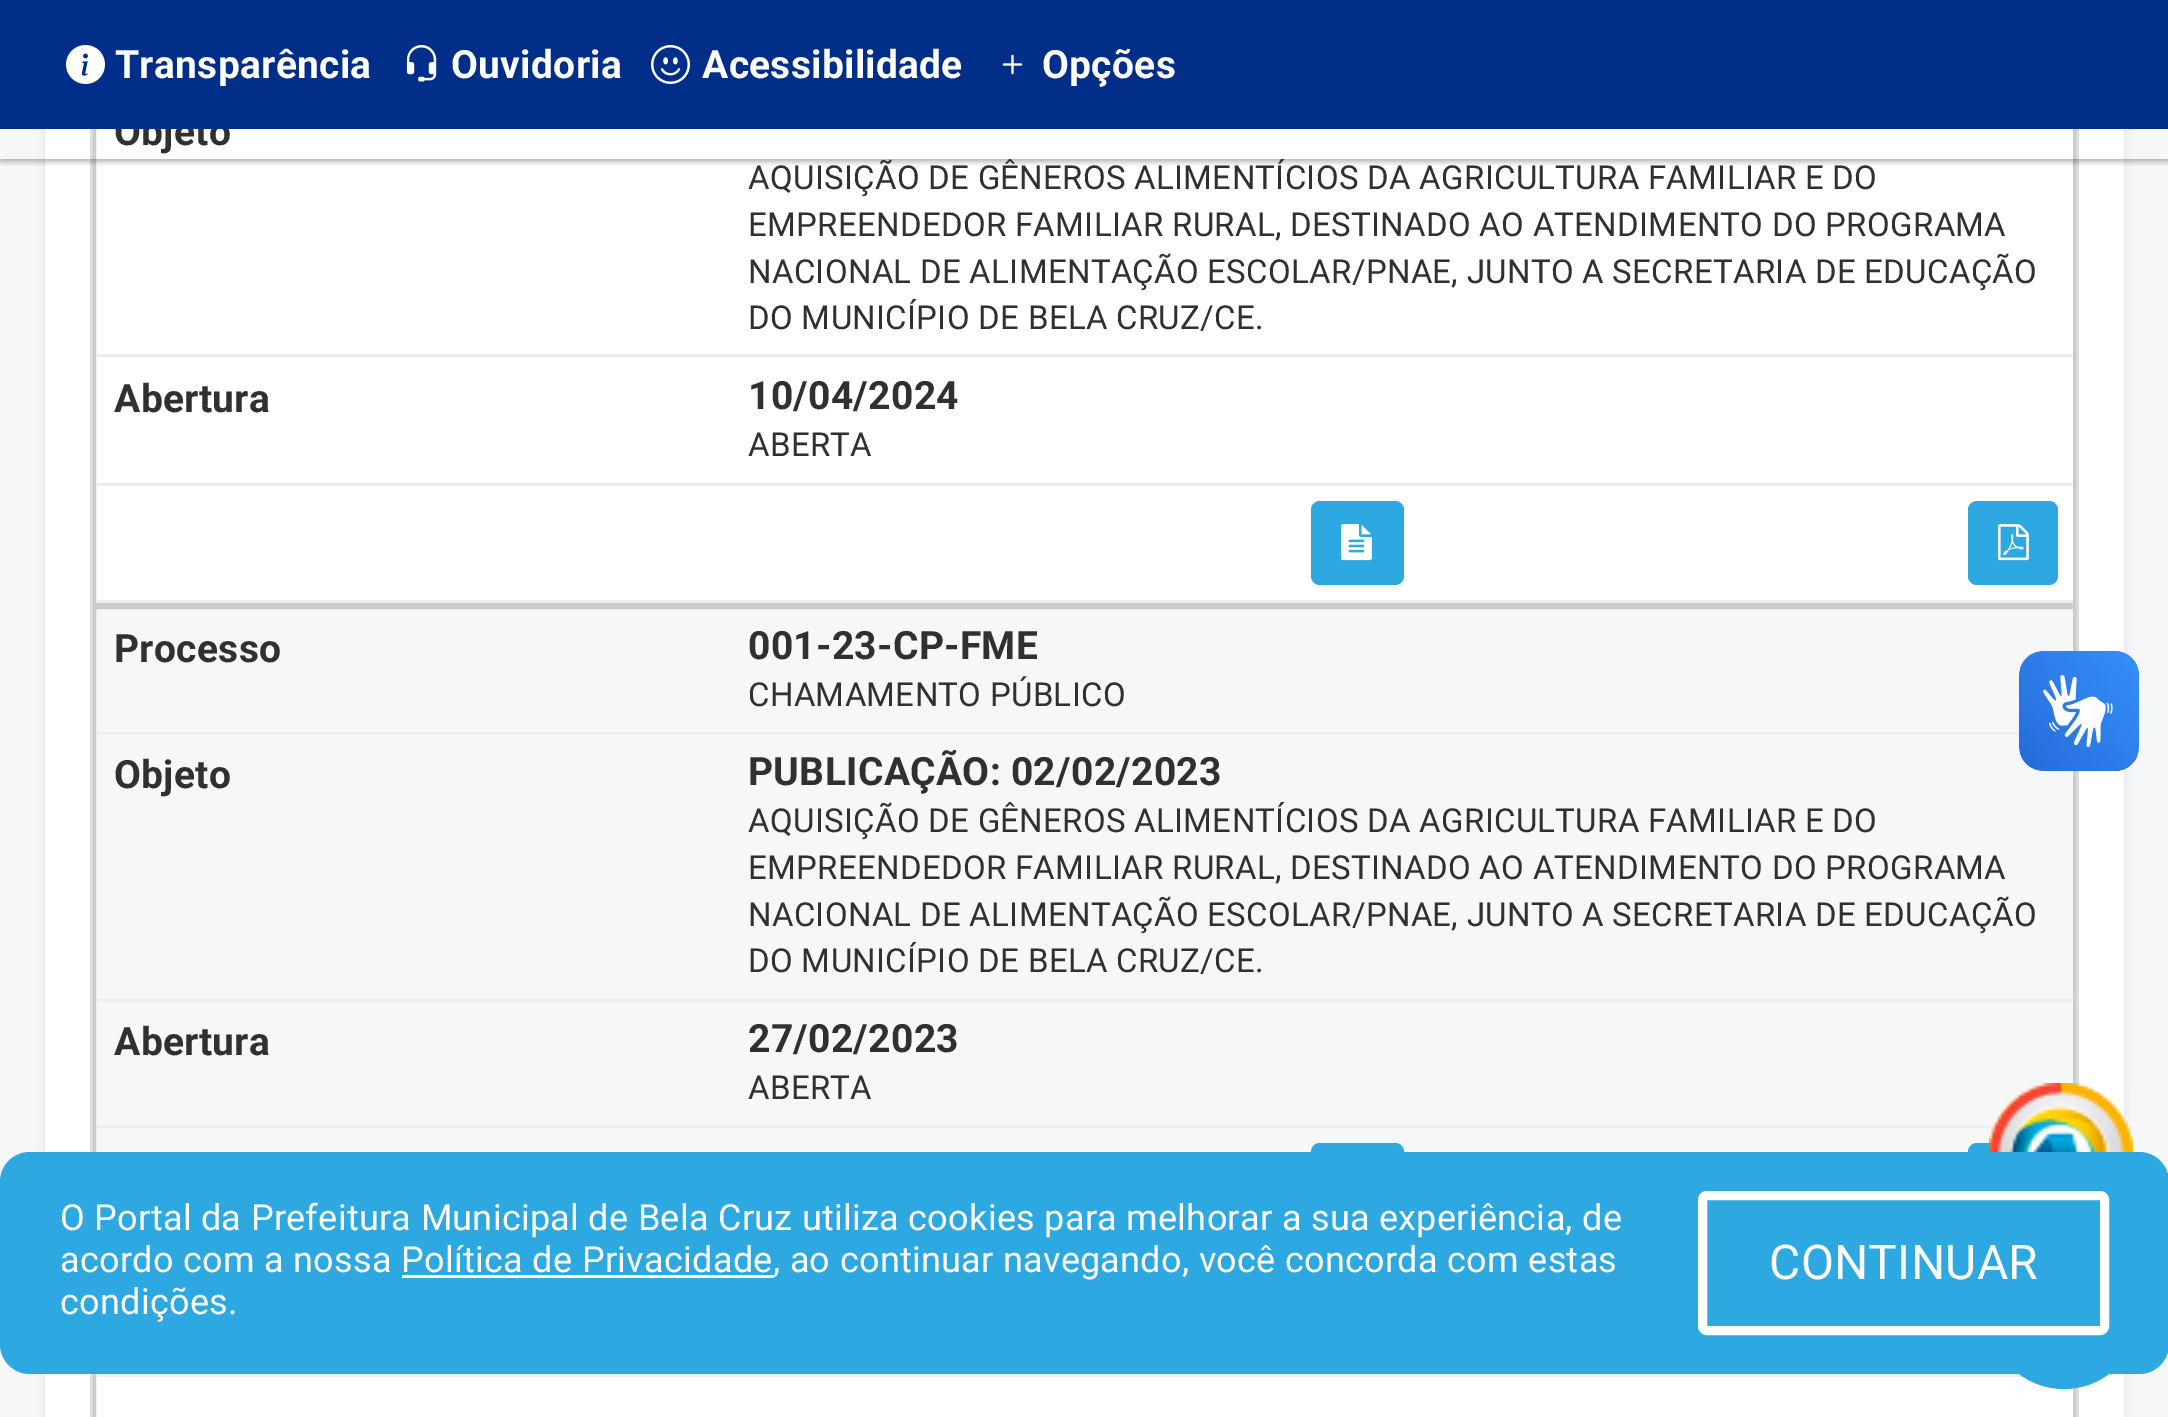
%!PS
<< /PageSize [2168 1417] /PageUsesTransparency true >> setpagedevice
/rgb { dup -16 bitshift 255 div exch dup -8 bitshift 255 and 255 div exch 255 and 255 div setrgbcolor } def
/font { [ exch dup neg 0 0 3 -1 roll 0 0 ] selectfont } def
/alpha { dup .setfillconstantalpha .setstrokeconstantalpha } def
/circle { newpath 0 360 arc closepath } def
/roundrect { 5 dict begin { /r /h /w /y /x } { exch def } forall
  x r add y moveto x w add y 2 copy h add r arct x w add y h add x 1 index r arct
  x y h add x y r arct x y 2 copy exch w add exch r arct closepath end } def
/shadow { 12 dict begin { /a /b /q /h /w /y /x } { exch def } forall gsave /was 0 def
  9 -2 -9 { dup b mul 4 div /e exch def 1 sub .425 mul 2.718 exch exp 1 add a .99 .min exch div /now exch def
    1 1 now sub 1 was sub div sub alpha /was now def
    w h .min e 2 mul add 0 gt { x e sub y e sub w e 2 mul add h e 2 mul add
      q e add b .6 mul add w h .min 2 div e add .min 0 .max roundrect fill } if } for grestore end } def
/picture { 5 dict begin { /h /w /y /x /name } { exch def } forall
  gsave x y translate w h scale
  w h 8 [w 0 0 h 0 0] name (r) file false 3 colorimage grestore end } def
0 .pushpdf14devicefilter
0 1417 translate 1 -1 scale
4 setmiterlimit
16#F6F7F8 rgb
0 0 2168 1417 rectfill
16#030047 rgb
45 -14 2079 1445 0 4.5 0.09 shadow
16#FFFFFF rgb
45 129 2079 1288 rectfill
16#DDDDDD rgb
2076 129 3 1288 rectfill
90 129 3 1288 rectfill
16#CCCCCC rgb
3 setlinewidth
94.5 -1.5 1980 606 rectstroke
gsave
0 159 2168 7 rectclip
16#000000 rgb
0 3 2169 159 0 3 0.3 shadow
grestore
/Roboto-Bold 39 font
16#303030 rgb
114 145 moveto 0.3 0 (Objeto) ashow
16#002E89 rgb
0 0 2168 129 rectfill
(pic1.raw) 66 45 39 39 picture
16#FFFFFF rgb
115 78 moveto 0.3 0 (Transparência) ashow
(pic2.raw) 406 45 31 37 picture
451 78 moveto 0.3 0 (Ouvidoria) ashow
(pic3.raw) 651 45 39 39 picture
702 78 moveto 0.3 0 (Acessibilidade) ashow
(pic4.raw) 1002 54 21 21 picture
1042 78 moveto 0.3 0 (Opções) ashow
16#EEEEEE rgb
96 354 1977 3 rectfill
/Roboto-Regular 33 font
16#303030 rgb
748 189 moveto 0.3 0 (AQUISIÇÃO DE GÊNEROS ALIMENTÍCIOS DA AGRICULTURA FAMILIAR E DO) ashow
748 236 moveto 0.3 0 (EMPREENDEDOR FAMILIAR RURAL, DESTINADO AO ATENDIMENTO DO PROGRAMA) ashow
748 283 moveto 0.3 0 (NACIONAL DE ALIMENTAÇÃO ESCOLAR/PNAE, JUNTO A SECRETARIA DE EDUCAÇÃO) ashow
748 329 moveto 0.3 0 (DO MUNICÍPIO DE BELA CRUZ/CE.) ashow
16#EEEEEE rgb
96 483 1977 3 rectfill
/Roboto-Bold 39 font
16#303030 rgb
114 412 moveto 0.3 0 (Abertura) ashow
748 409 moveto 0.3 0 (10/04/2024) ashow
/Roboto-Regular 33 font
748 456 moveto 0.3 0 (ABERTA) ashow
16#EEEEEE rgb
96 600 1977 3 rectfill
16#2EA8E0 rgb
1311 501 93 84 9 roundrect fill
(pic5.raw) 1341 524 31 37 picture
1968 501 90 84 9 roundrect fill
(pic6.raw) 1998 524 31 37 picture
16#F6F7F8 rgb
96 609 1977 543 rectfill
16#CCCCCC rgb
94.5 607.5 1980 639 rectstroke
16#EEEEEE rgb
96 732 1923 3 rectfill
/Roboto-Bold 39 font
16#303030 rgb
114 662 moveto 0.3 0 (Processo) ashow
748 659 moveto 0.3 0 (001-23-CP-FME) ashow
/Roboto-Regular 33 font
748 706 moveto 0.3 0 (CHAMAMENTO PÚBLICO) ashow
16#EEEEEE rgb
96 999 1977 3 rectfill
/Roboto-Bold 39 font
16#303030 rgb
114 788 moveto 0.3 0 (Objeto) ashow
748 785 moveto 0.3 0 (PUBLICAÇÃO: 02/02/2023) ashow
/Roboto-Regular 33 font
748 832 moveto 0.3 0 (AQUISIÇÃO DE GÊNEROS ALIMENTÍCIOS DA AGRICULTURA FAMILIAR E DO) ashow
748 879 moveto 0.3 0 (EMPREENDEDOR FAMILIAR RURAL, DESTINADO AO ATENDIMENTO DO PROGRAMA) ashow
748 926 moveto 0.3 0 (NACIONAL DE ALIMENTAÇÃO ESCOLAR/PNAE, JUNTO A SECRETARIA DE EDUCAÇÃO) ashow
748 972 moveto 0.3 0 (DO MUNICÍPIO DE BELA CRUZ/CE.) ashow
16#EEEEEE rgb
96 1125 1903 3 rectfill
/Roboto-Bold 39 font
16#303030 rgb
114 1055 moveto 0.3 0 (Abertura) ashow
748 1052 moveto 0.3 0 (27/02/2023) ashow
/Roboto-Regular 33 font
748 1099 moveto 0.3 0 (ABERTA) ashow
16#2EA8E0 rgb
1311 1143 93 84 9 roundrect fill
1968 1143 90 84 9 roundrect fill
16#CCCCCC rgb
94.5 1249.5 1980 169 rectstroke
16#EEEEEE rgb
96 1374 1928 3 rectfill
(pic7.raw) 2019 651 120 120 picture
(pic8.raw) 2019 651 120 120 picture
(pic9.raw) 1989 1083 144 69 picture
16#2EA8E0 rgb
2064 1314 75 circle fill
0 1152 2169 222 30 roundrect fill
/Roboto-Regular 36 font
16#FFFFFF rgb
60 1230 moveto 0.3 0 (O Portal da Prefeitura Municipal de Bela Cruz utiliza cookies para melhorar a sua experiência, de) ashow
60 1272 moveto 0.3 0 (acordo com a nossa Política de Privacidade) ashow
402 1275 372 3 rectfill
773 1272 moveto 0.3 0 (, ao continuar navegando, você concorda com estas) ashow
60 1314 moveto 0.3 0 (condições.) ashow
9 setlinewidth
1702.5 1195.5 402 135 4.5 roundrect stroke
/Roboto-Regular 48 font
1769 1279 moveto 0.3 0 (CONTINUAR) ashow
.poppdf14devicefilter showpage
